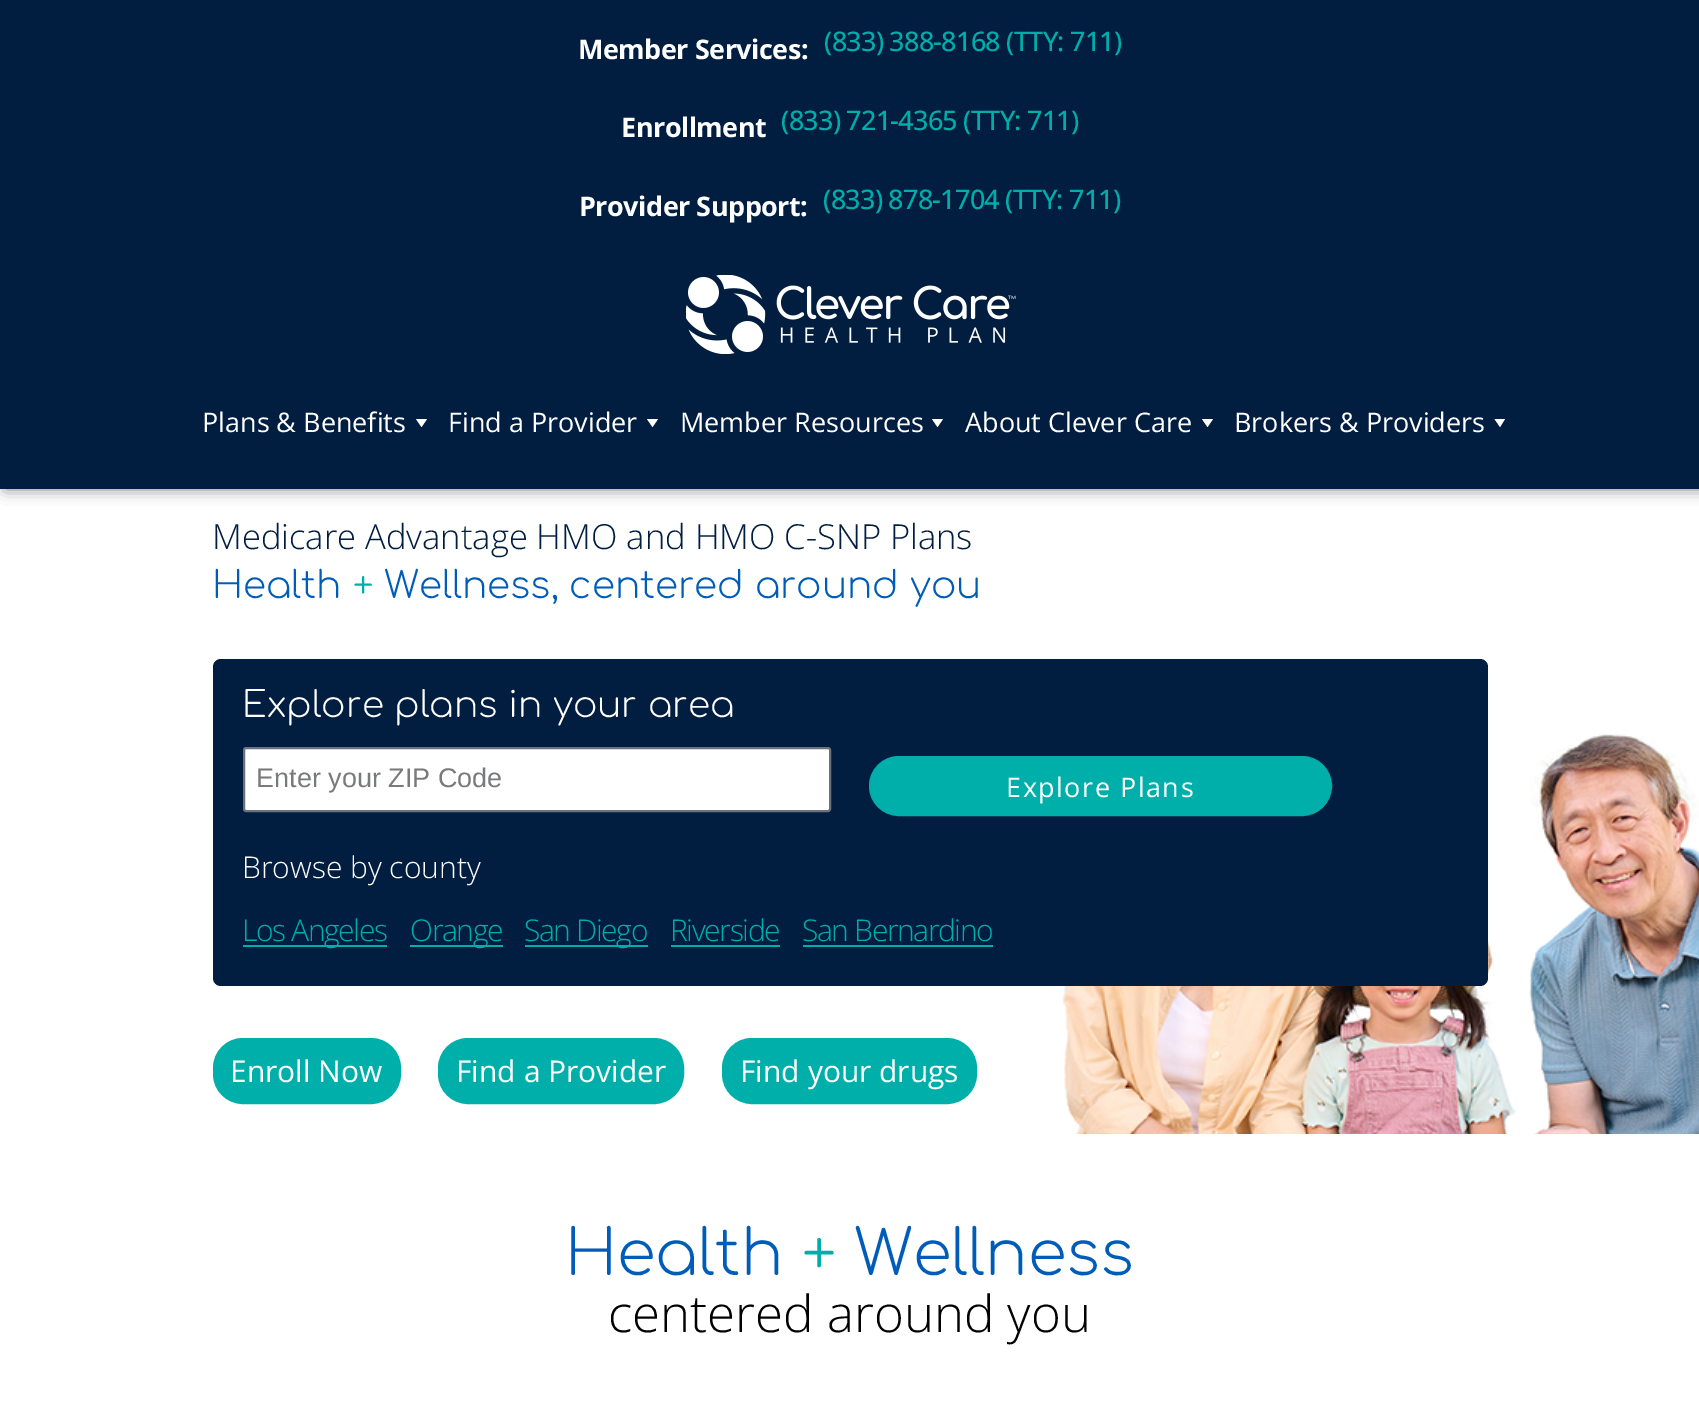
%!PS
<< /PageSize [1699 1425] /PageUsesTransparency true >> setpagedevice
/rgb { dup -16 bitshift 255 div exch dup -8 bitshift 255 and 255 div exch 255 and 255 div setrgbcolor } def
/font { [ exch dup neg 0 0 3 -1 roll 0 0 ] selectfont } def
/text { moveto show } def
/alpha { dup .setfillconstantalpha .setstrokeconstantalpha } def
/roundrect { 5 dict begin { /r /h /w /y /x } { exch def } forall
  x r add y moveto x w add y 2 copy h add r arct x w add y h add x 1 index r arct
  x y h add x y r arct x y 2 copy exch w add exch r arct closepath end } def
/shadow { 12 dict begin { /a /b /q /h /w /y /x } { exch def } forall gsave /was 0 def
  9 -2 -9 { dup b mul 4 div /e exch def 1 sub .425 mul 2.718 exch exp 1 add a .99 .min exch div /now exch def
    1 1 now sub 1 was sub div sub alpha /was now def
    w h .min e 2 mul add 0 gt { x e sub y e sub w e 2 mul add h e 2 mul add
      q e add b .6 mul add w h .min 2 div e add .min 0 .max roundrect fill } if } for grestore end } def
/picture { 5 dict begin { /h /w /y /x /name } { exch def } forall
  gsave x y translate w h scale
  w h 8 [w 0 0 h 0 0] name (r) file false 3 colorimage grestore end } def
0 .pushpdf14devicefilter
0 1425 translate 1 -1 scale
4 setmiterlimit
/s1 { /OpenSans-Regular 27 font 16#FFFFFF rgb } def
/s2 { /OpenSans-Light 34.5 font 16#011E41 rgb } def
/s3 { /Comfortaa-Light 37.5 font 16#005CB9 rgb } def
/s4 { /Comfortaa-Light 37.5 font 16#00AEA9 rgb } def
/s5 { /Comfortaa-Light 36 font 16#FFFFFF rgb } def
/s6 { /LiberationSans-Regular 27 font 16#797A7C rgb } def
/s7 { /OpenSans-Light 30 font 16#FFFFFF rgb } def
/s8 { /OpenSans-Regular 30 font 16#FFFFFF rgb } def
/s9 { /Comfortaa-Light 63 font 16#005CB9 rgb } def
/s10 { /Comfortaa-Light 63 font 16#00AEA9 rgb } def
/s11 { /OpenSans-Light 51 font 16#020101 rgb } def
16#FFFFFF rgb
0 0 1699 1425 rectfill
16#000000 rgb
5 0 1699 489 0 7.5 0.5 shadow
16#011E41 rgb
0 0 1699 489 rectfill
/OpenSans-Bold 27 font
16#FFFFFF rgb
578 59 moveto -0.5 0 (Member Services:) ashow
/OpenSans-Medium 27 font
16#00AEA9 rgb
824 51 moveto -0.75 0 (\(833\) 388-8168 \(TTY: 711\)) ashow
/OpenSans-Bold 27 font
16#FFFFFF rgb
621 137 moveto -0.5 0 (Enrollment) ashow
/OpenSans-Medium 27 font
16#00AEA9 rgb
781 130 moveto -0.75 0 (\(833\) 721-4365 \(TTY: 711\)) ashow
/OpenSans-Bold 27 font
16#FFFFFF rgb
579 216 moveto -0.5 0 (Provider Support:) ashow
/OpenSans-Medium 27 font
16#00AEA9 rgb
823 209 moveto -0.75 0 (\(833\) 878-1704 \(TTY: 711\)) ashow
(pic1.raw) 686 275 330 79 picture
s1
(Plans & Benefits) 202 432 text
427 419 moveto 421.5 427 lineto 416 419 lineto closepath fill
(Find a Provider) 448 432 text
658 419 moveto 652.5 427 lineto 647 419 lineto closepath fill
(Member Resources) 680 432 text
943 419 moveto 937.5 427 lineto 932 419 lineto closepath fill
(About Clever Care) 965 432 text
1213 419 moveto 1207.5 427 lineto 1202 419 lineto closepath fill
(Brokers & Providers) 1234 432 text
1505 419 moveto 1500 427 lineto 1494.5 419 lineto closepath fill
(pic2.raw) 1062 711 637 423 picture
s2
(Medicare Advantage HMO and HMO C-SNP Plans) 212 549 text
s3
(Health) 212 598 text
s4
(+) 353 598 text
s3
(Wellness, centered around you) 384 598 text
16#011E41 rgb
213 659 1275 327 8 roundrect fill
s5
(Explore plans in your area) 242 717 text
244 748 586 63 2 roundrect gsave fill grestore
16#69727D rgb
2 setlinewidth
stroke
s6
(Enter your ZIP Code) 256 787 text
16#00AFAA rgb
870.5 757.5 460 57 28.5 roundrect gsave fill grestore
3 setlinewidth
stroke
/OpenSans-Regular 27 font
16#FFFFFF rgb
1006 797 moveto 1.5 0 (Explore Plans) ashow
s7
(Browse by county) 242 878 text
16#00AFAA rgb
243 945 144 2 rectfill
16#00AEA9 rgb
242 941 moveto -1.4 0 (Los Angeles) ashow
16#00AFAA rgb
410 945 93 2 rectfill
16#00AEA9 rgb
410 941 moveto -1.4 0 (Orange) ashow
16#00AFAA rgb
525 945 123 2 rectfill
16#00AEA9 rgb
524 941 moveto -1.4 0 (San Diego) ashow
16#00AFAA rgb
671 945 109 2 rectfill
16#00AEA9 rgb
670 941 moveto -1.4 0 (Riverside) ashow
16#00AFAA rgb
803 945 190 2 rectfill
16#00AEA9 rgb
802 941 moveto -1.4 0 (San Bernardino) ashow
16#00AFAA rgb
214.5 1039.5 185 63 28.5 roundrect gsave fill grestore
stroke
s8
(Enroll Now) 230 1082 text
16#00AFAA rgb
439.5 1039.5 243 63 28.5 roundrect gsave fill grestore
stroke
s8
(Find a Provider) 456 1082 text
16#00AFAA rgb
723.5 1039.5 252 63 28.5 roundrect gsave fill grestore
stroke
s8
(Find your drugs) 740 1082 text
s9
(Health) 565 1275 text
s10
(+) 802 1275 text
s9
(Wellness) 854 1275 text
s11
(centered around you) 608 1332 text
.poppdf14devicefilter showpage
